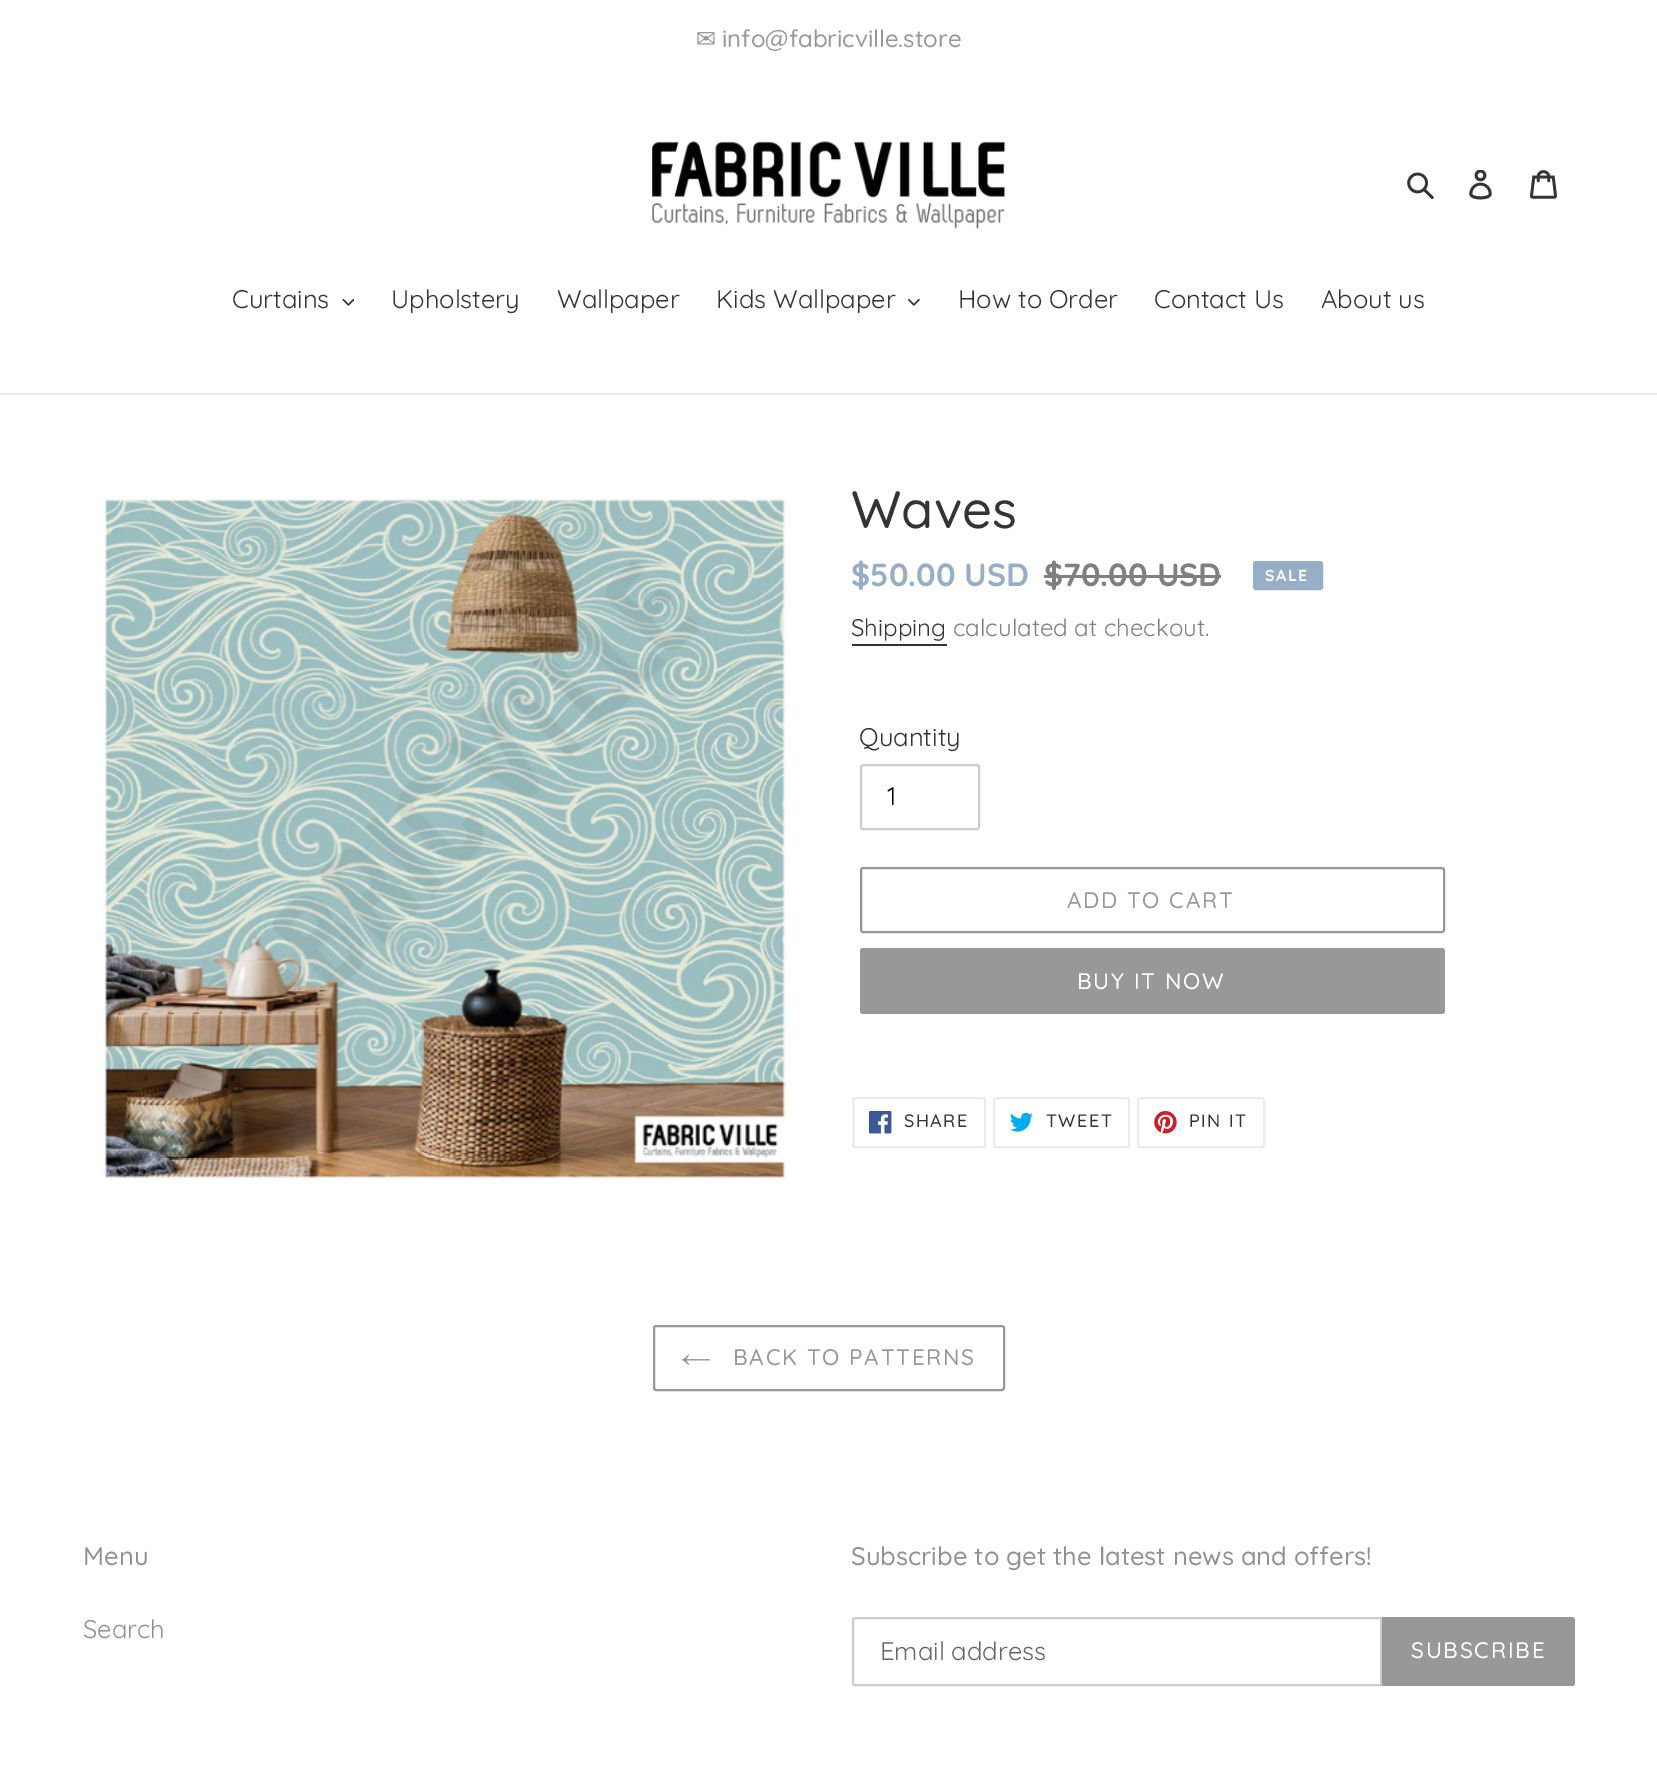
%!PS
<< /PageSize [1657 1767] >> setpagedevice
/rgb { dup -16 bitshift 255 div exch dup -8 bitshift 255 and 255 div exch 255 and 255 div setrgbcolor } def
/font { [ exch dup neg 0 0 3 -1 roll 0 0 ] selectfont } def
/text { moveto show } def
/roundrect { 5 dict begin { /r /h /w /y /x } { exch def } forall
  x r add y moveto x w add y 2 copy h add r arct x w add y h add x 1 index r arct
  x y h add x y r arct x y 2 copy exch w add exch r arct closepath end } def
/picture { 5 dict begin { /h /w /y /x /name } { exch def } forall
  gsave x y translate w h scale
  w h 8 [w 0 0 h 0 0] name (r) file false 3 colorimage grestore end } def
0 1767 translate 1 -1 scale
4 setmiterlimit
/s1 { /DejaVuSans-Regular 24 font 16#989898 rgb } def
/s2 { /Quicksand-Medium 24 font 16#989898 rgb } def
/s3 { /Quicksand-Regular 25.5 font 16#353434 rgb } def
/s4 { /Quicksand-Medium 52.5 font 16#353434 rgb } def
/s5 { /Quicksand-Bold 32 font 16#97AEC7 rgb } def
/s6 { /Quicksand-Bold 32 font 16#818080 rgb } def
/s7 { /Quicksand-Regular 24 font 16#353434 rgb } def
/s8 { /Quicksand-Regular 24 font 16#818080 rgb } def
/s9 { /Quicksand-Regular 25.5 font 16#000000 rgb } def
/s10 { /Quicksand-Medium 25.5 font 16#929191 rgb } def
/s11 { /Quicksand-Regular 25.5 font 16#929191 rgb } def
/s12 { /Quicksand-Regular 25.5 font 16#666666 rgb } def
16#FFFFFF rgb
0 0 1657 1767 rectfill
s1
(✉) 696 47 text
s2
(info@fabricville.store) 722 47 text
(pic1.raw) 652 141 354 88 picture
(pic2.raw) 1407 172 27 28 picture
(pic3.raw) 1469 170 23 30 picture
(pic4.raw) 1530 170 27 29 picture
16#EBEBEB rgb
0 393 1657 2 rectfill
s3
(Curtains) 232 308 text
(pic5.raw) 342 298 12 8 picture
(Upholstery) 391 308 text
(Wallpaper) 557 308 text
(Kids Wallpaper) 716 308 text
(pic6.raw) 908 298 12 8 picture
(How to Order) 958 308 text
(Contact Us) 1154 308 text
(About us) 1321 308 text
(pic7.raw) 102 498 689 683 picture
s4
(Waves) 851 528 text
s5
($50.00 USD) 851 586 text
s6
($70.00 USD) 1044 586 text
1044 575 177 3 rectfill
16#97AEC7 rgb
1254 562 68 27 2 roundrect gsave fill grestore
2 setlinewidth
stroke
/Quicksand-Bold 16 font
16#FFFFFF rgb
1265 581 moveto 1.5 0 (SALE) ashow
s7
(Shipping) 851 636 text
852 644 95 2 rectfill
s8
(calculated at checkout.) 953 636 text
s3
(Quantity) 859 746 text
16#CCCCCC rgb
861 765 118 64 2 roundrect stroke
s9
(1) 887 805 text
16#989898 rgb
861 868 583 64 2 roundrect stroke
/Quicksand-Medium 22.5 font
1067 908 moveto 1.75 0 (ADD TO CART) ashow
860 948 585 66 3 roundrect fill
16#FFFFFF rgb
1077 989 moveto 1.75 0 (BUY IT NOW) ashow
16#EBEBEB rgb
853 1098 132 49 2 roundrect stroke
(pic8.raw) 869 1111 23 23 picture
/Quicksand-Medium 18 font
16#353434 rgb
904 1127 moveto 1.5 0 (SHARE) ashow
16#EBEBEB rgb
994 1098 135 49 2 roundrect stroke
(pic9.raw) 1010 1112 23 20 picture
16#353434 rgb
1046 1127 moveto 1.5 0 (TWEET) ashow
16#EBEBEB rgb
1138 1098 126 49 2 roundrect stroke
(pic10.raw) 1154 1111 23 23 picture
16#353434 rgb
1189 1127 moveto 1.5 0 (PIN IT) ashow
16#989898 rgb
654 1326 350 64 2 roundrect stroke
(pic11.raw) 682 1354 28 12 picture
/Quicksand-Medium 22.5 font
733 1365 moveto 1.75 0 (BACK TO PATTERNS) ashow
s10
(Menu) 83 1565 text
s11
(Search) 83 1638 text
s10
(Subscribe to get the latest news and offers!) 851 1565 text
16#CCCCCC rgb
855 1618 moveto 1381 1618 lineto 1381 1685 lineto 855 1685 lineto 854 1685 853 1684 853 1683 curveto 853 1620 lineto 853 1619 854 1618 855 1618 curveto closepath stroke
s12
(Email address) 880 1660 text
16#989898 rgb
1382 1617 moveto 1572 1617 lineto 1573.5 1617 1575 1618.5 1575 1620 curveto 1575 1683 lineto 1575 1684.5 1573.5 1686 1572 1686 curveto 1382 1686 lineto closepath fill
/Quicksand-Medium 22.5 font
16#FFFFFF rgb
1411 1658 moveto 1.75 0 (SUBSCRIBE) ashow
showpage
